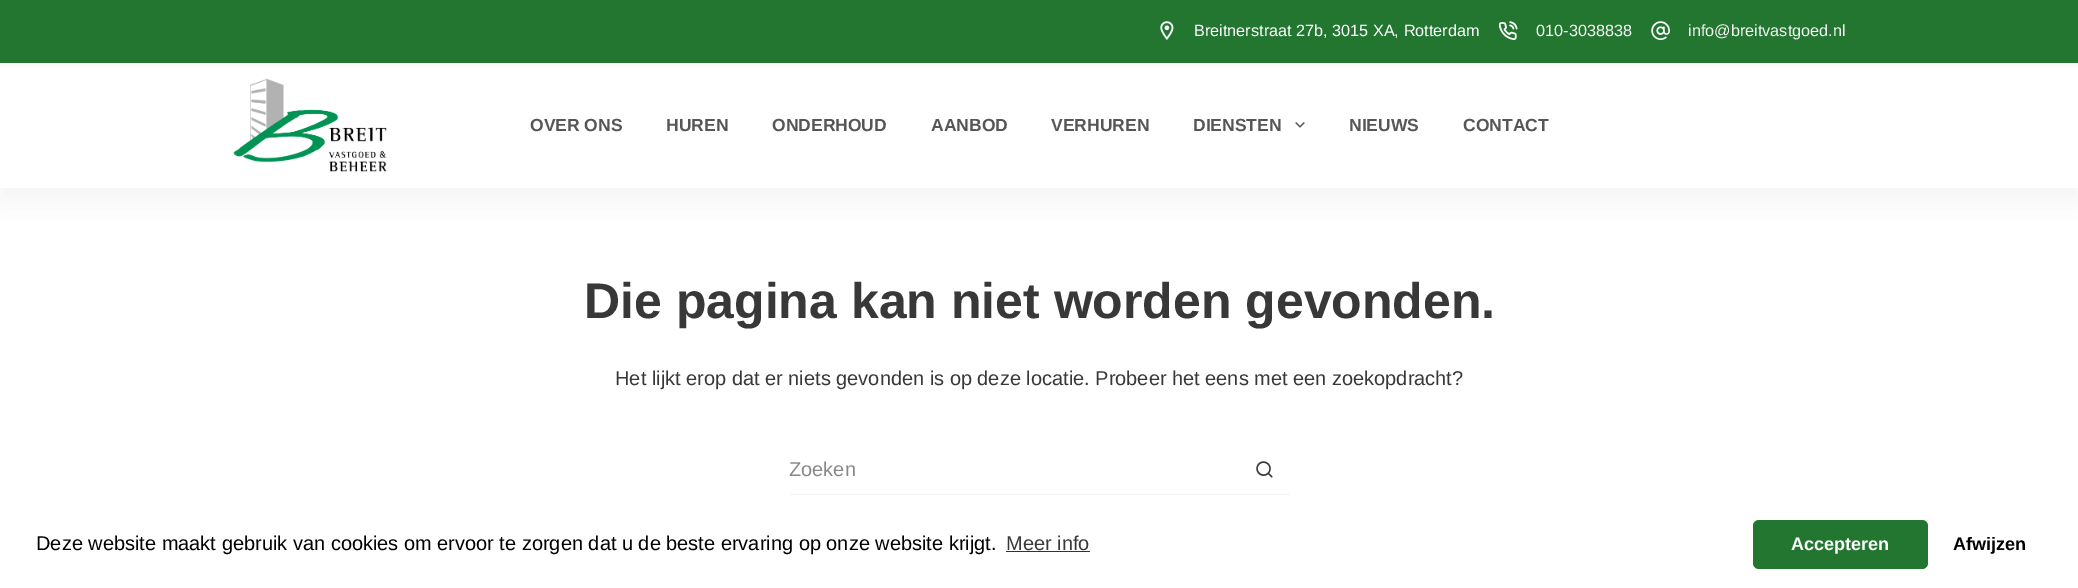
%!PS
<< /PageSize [2078 588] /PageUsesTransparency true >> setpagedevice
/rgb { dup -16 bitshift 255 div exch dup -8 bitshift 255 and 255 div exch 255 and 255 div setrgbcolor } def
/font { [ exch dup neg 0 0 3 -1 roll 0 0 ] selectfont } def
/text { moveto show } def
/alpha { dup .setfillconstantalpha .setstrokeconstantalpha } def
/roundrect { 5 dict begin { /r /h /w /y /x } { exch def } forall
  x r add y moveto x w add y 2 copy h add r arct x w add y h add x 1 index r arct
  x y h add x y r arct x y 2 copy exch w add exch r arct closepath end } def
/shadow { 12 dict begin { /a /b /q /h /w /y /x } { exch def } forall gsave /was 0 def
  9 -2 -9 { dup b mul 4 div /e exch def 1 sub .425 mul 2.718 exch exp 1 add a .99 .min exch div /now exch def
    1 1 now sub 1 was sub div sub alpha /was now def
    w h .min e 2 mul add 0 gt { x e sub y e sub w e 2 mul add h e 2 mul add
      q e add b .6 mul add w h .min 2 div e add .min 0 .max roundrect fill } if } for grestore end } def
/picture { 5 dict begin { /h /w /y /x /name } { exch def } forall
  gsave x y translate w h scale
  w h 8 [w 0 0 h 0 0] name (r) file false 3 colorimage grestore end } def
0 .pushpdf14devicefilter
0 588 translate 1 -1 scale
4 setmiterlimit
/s1 { /LiberationSans-Regular 16.25 font 16#FFFFFF rgb } def
/s2 { /LiberationSans-Regular 16.25 font 16#F4F4F4 rgb } def
/s3 { /LiberationSans-Bold 17.5 font 16#575656 rgb } def
/s4 { /LiberationSans-Bold 50 font 16#383838 rgb } def
/s5 { /LiberationSans-Regular 20 font 16#383838 rgb } def
/s6 { /LiberationSans-Regular 20 font 16#888888 rgb } def
/s7 { /LiberationSans-Regular 20 font 16#000000 rgb } def
/s8 { /LiberationSans-Bold 18 font 16#FFFFFF rgb } def
/s9 { /LiberationSans-Bold 18 font 16#000000 rgb } def
16#FFFFFF rgb
0 0 2078 588 rectfill
16#2B3D4F rgb
0 75 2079 125 0 12.5 0.05 shadow
16#23762F rgb
0 0 2078 63 rectfill
(pic1.raw) 1160 21 14 19 picture
s1
(Breitnerstraat 27b, 3015 XA, Rotterdam) 1194 36 text
(pic2.raw) 1499 21 19 19 picture
s2
(010-3038838) 1536 36 text
(pic3.raw) 1651 21 19 19 picture
(info@breitvastgoed.nl) 1688 36 text
16#FFFFFF rgb
0 67 2078 121 rectfill
(pic4.raw) 233 78 154 94 picture
s3
(OVER ONS) 530 131 text
(HUREN) 666 131 text
(ONDERHOUD) 772 131 text
(AANBOD) 931 131 text
(VERHUREN) 1051 131 text
(DIENSTEN) 1193 131 text
(pic5.raw) 1295 122 10 6 picture
(NIEUWS) 1349 131 text
(CONTACT) 1463 131 text
s4
(Die pagina kan niet worden gevonden.) 584 318 text
s5
(Het lijkt erop dat er niets gevonden is op deze locatie. Probeer het eens met een zoekopdracht?) 615 385 text
16#F4F4F4 rgb
790 494 500 1 rectfill
s6
(Zoeken) 789 476 text
(pic6.raw) 1256 461 17 17 picture
s7
(Deze website maakt gebruik van cookies om ervoor te zorgen dat u de beste ervaring op onze website krijgt.) 36 550 text
s5
(Meer info) 1006 550 text
16#333333 rgb
1006 551 84 1 rectfill
16#237630 rgb
1753 520 175 49 6 roundrect fill
s8
(Accepteren) 1791 550 text
s9
(Afwijzen) 1953 550 text
.poppdf14devicefilter showpage
